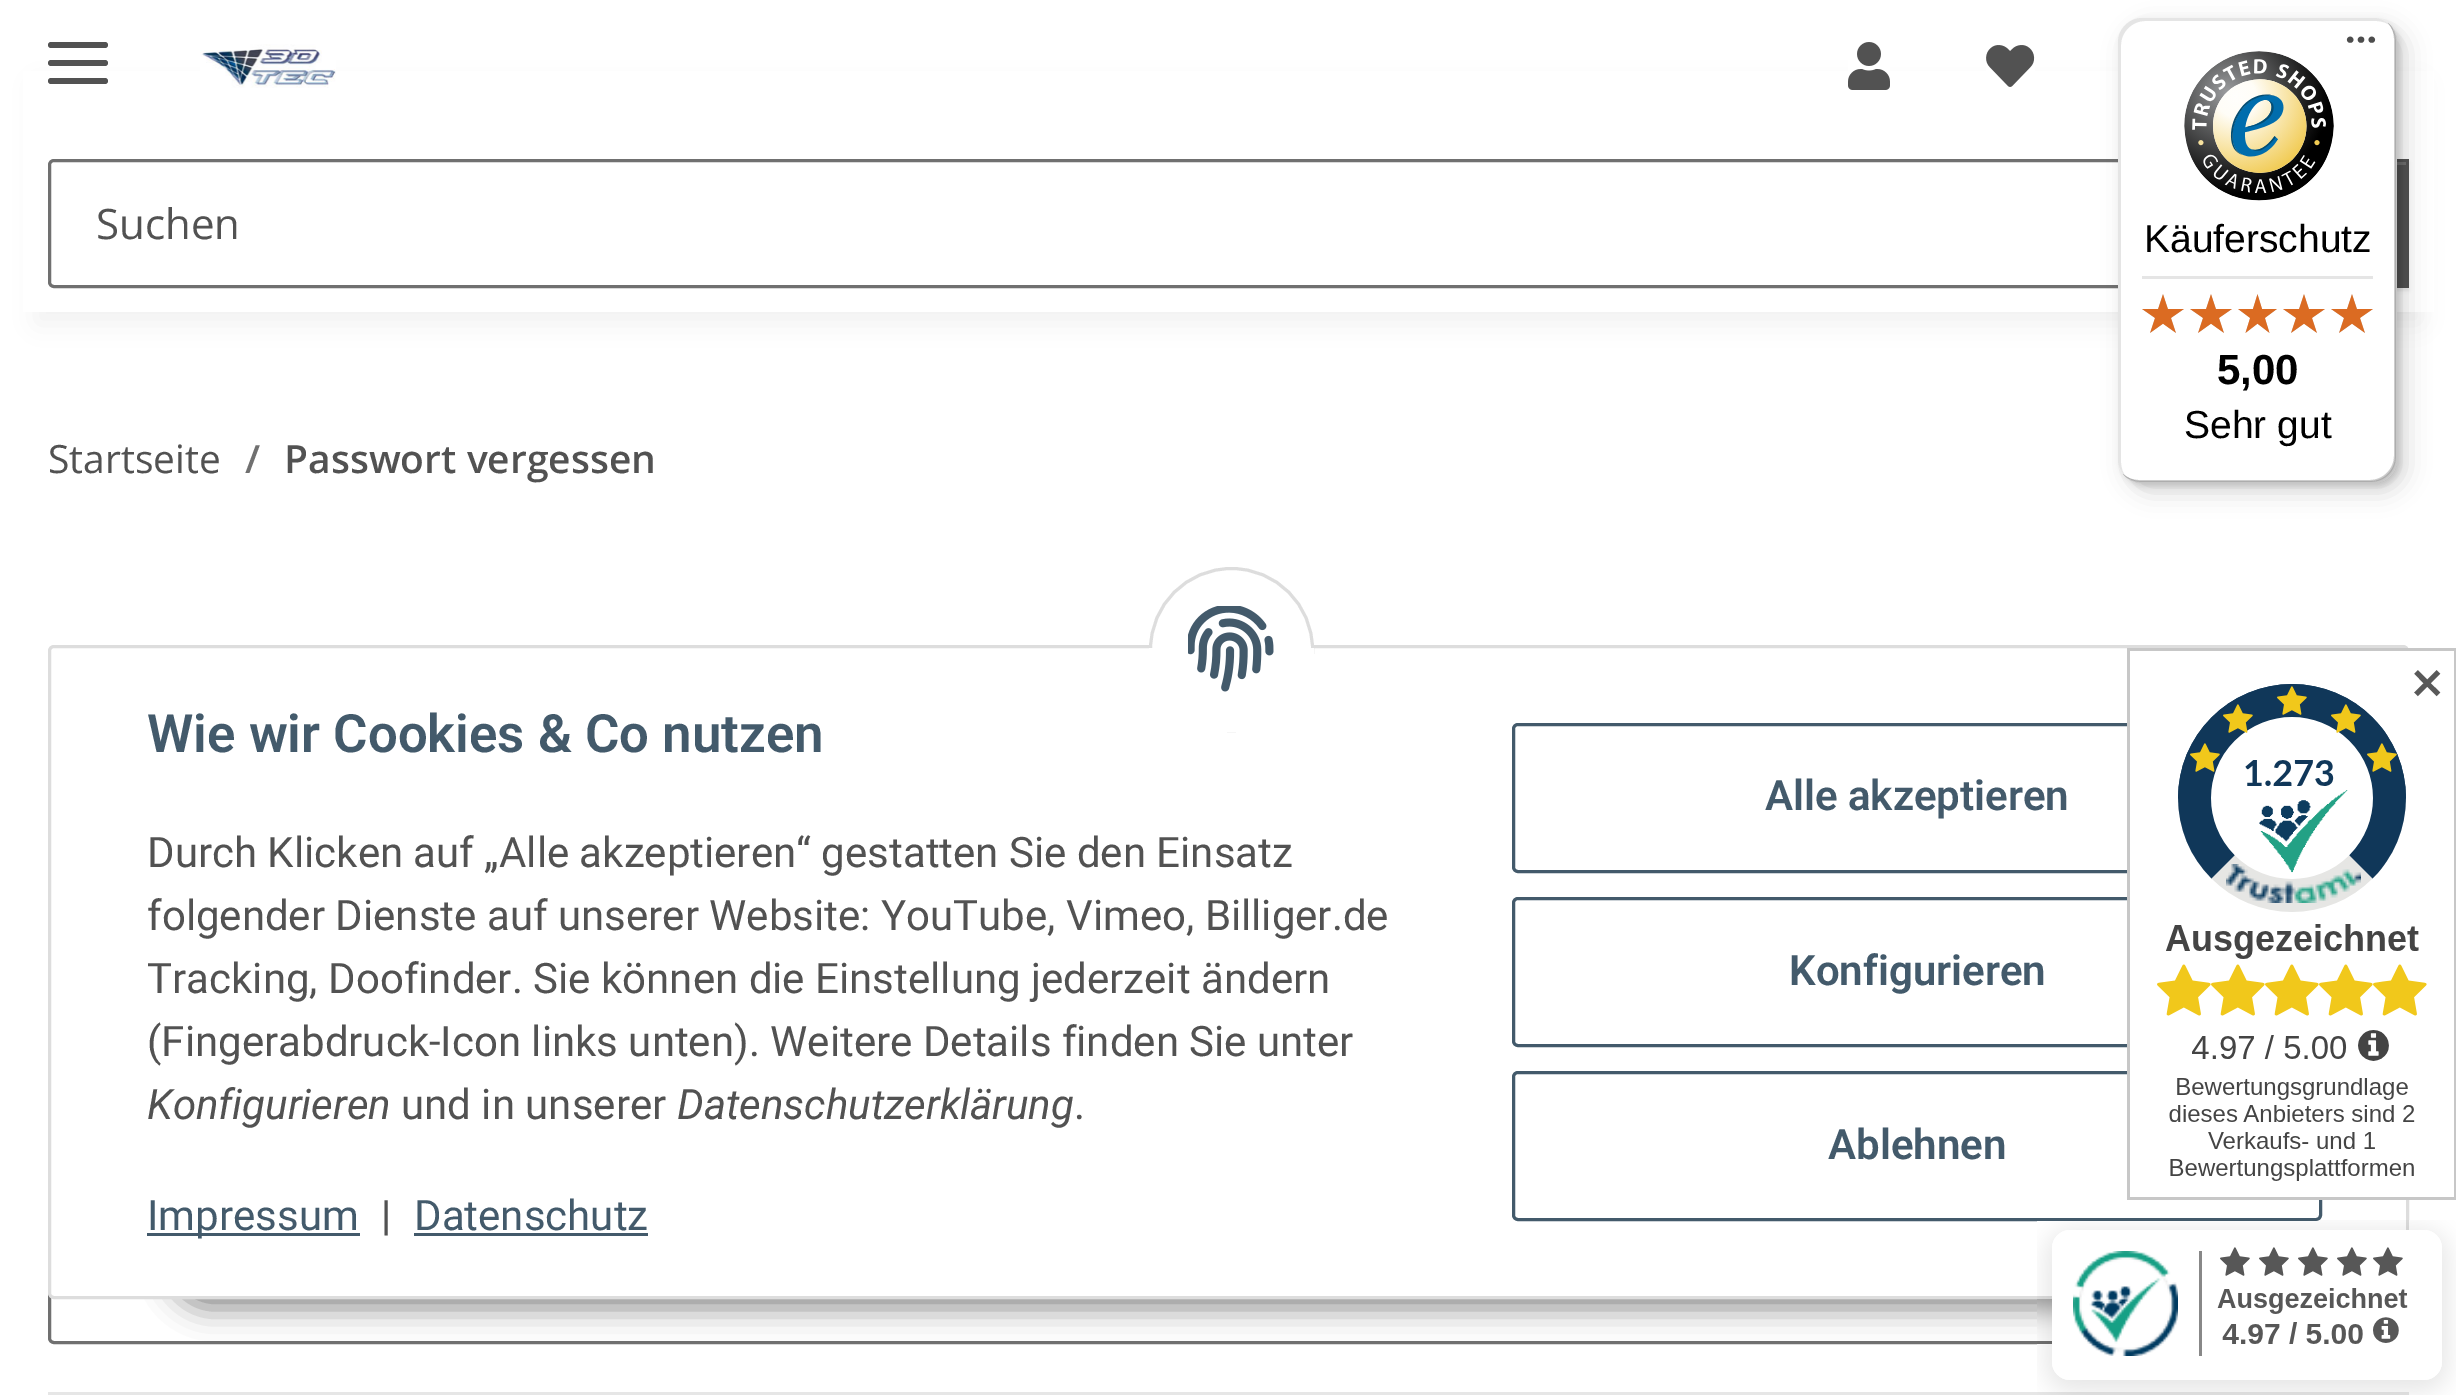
%!PS
<< /PageSize [2456 1395] /PageUsesTransparency true >> setpagedevice
/rgb { dup -16 bitshift 255 div exch dup -8 bitshift 255 and 255 div exch 255 and 255 div setrgbcolor } def
/font { [ exch dup neg 0 0 3 -1 roll 0 0 ] selectfont } def
/text { moveto show } def
/alpha { dup .setfillconstantalpha .setstrokeconstantalpha } def
/circle { newpath 0 360 arc closepath } def
/roundrect { 5 dict begin { /r /h /w /y /x } { exch def } forall
  x r add y moveto x w add y 2 copy h add r arct x w add y h add x 1 index r arct
  x y h add x y r arct x y 2 copy exch w add exch r arct closepath end } def
/shadow { 12 dict begin { /a /b /q /h /w /y /x } { exch def } forall gsave /was 0 def
  9 -2 -9 { dup b mul 4 div /e exch def 1 sub .425 mul 2.718 exch exp 1 add a .99 .min exch div /now exch def
    1 1 now sub 1 was sub div sub alpha /was now def
    w h .min e 2 mul add 0 gt { x e sub y e sub w e 2 mul add h e 2 mul add
      q e add b .6 mul add w h .min 2 div e add .min 0 .max roundrect fill } if } for grestore end } def
/picture { 5 dict begin { /h /w /y /x /name } { exch def } forall
  gsave x y translate w h scale
  w h 8 [w 0 0 h 0 0] name (r) file false 3 colorimage grestore end } def
0 .pushpdf14devicefilter
0 1395 translate 1 -1 scale
4 setmiterlimit
/s1 { /OpenSans-Regular 42 font 16#525252 rgb } def
/s2 { /LiberationSans-Regular 39 font 16#000000 rgb } def
/s3 { /LiberationSans-Bold 42 font 16#000000 rgb } def
/s4 { /OpenSans-Regular 39 font 16#525252 rgb } def
/s5 { /OpenSans-SemiBold 39 font 16#707070 rgb } def
/s6 { /OpenSans-SemiBold 39 font 16#525252 rgb } def
/s7 { /DejaVuSans-Bold 42 font 16#595959 rgb } def
/s8 { /Roboto-SemiBold 52.75 font 16#435A6B rgb } def
/s9 { /Roboto-Regular 42 font 16#525252 rgb } def
/s10 { /Roboto-Italic 42 font 16#525252 rgb } def
/s11 { /Roboto-Regular 42 font 16#435A6B rgb } def
/s12 { /Roboto-SemiBold 42 font 16#435A6B rgb } def
16#FFFFFF rgb
0 0 2456 1395 rectfill
16#000000 rgb
36 84 2385 240 0 13.5 0.06 shadow
16#FFFFFF rgb
23 71 2411 241 rectfill
16#525252 rgb
48 60 60 6 3 roundrect fill
48 42 60 6 3 roundrect fill
48 78 60 6 3 roundrect fill
(pic1.raw) 200 44 136 44 picture
(pic2.raw) 1848 42 42 48 picture
(pic3.raw) 1986 45 49 42 picture
16#707070 rgb
3 setlinewidth
49.5 160.5 2223 126 4.5 roundrect stroke
s1
(Suchen) 96 239 text
16#000000 rgb
2271 162 138 129 0 1.5 0.07 shadow
16#525252 rgb
2397 159 12 129 rectfill
16#6C6C6C rgb
2397 162 9 3 rectfill
16#000000 rgb
2127 27 279 465 24 12 0.15 shadow
2121 21 279 465 24 3 0.15 shadow
16#FFFFFF rgb
2118 18 279 465 24 roundrect fill
0.1 alpha
16#000000 rgb
2145 21 moveto 2376 21 lineto 2382 21 2388 23 2392 27 curveto 2387 22 2381 18 2373 18 curveto 2142 18 lineto 2129 18 2118 29 2118 42 curveto 2118 459 lineto 2118 467 2122 473 2127 478 curveto 2123 474 2121 468 2121 462 curveto 2121 45 lineto 2121 32 2132 21 2145 21 curveto closepath fill
0.2 alpha
2123 474 moveto 2128 479 2134 483 2142 483 curveto 2373 483 lineto 2386 483 2397 472 2397 459 curveto 2397 42 lineto 2397 34 2393 28 2388 23 curveto 2392 27 2394 33 2394 39 curveto 2394 456 lineto 2394 469 2383 480 2370 480 curveto 2139 480 lineto 2133 480 2127 478 2123 474 curveto closepath fill
16#323232 rgb
2123 474 moveto 2128 480 2134 483 2142 483 curveto 2373 483 lineto 2386 483 2397 472 2397 459 curveto 2397 42 lineto 2397 34 2394 28 2388 23 curveto 2392 28 2395 34 2395 40 curveto 2395 457 lineto 2395 470 2384 481 2371 481 curveto 2140 481 lineto 2134 481 2128 478 2123 474 curveto closepath fill
0.3 alpha
16#FFFFFF rgb
2129 479 moveto 2133 482 2137 483 2142 483 curveto 2373 483 lineto 2386 483 2397 472 2397 459 curveto 2397 42 lineto 2397 37 2396 33 2393 29 curveto 2395 33 2396 36 2396 40 curveto 2396 458 lineto 2396 471 2385 482 2372 482 curveto 2140 482 lineto 2136 482 2133 481 2129 479 curveto closepath fill
1 alpha
(pic4.raw) 2346 36 30 7 picture
(pic5.raw) 2184 51 150 150 picture
s2
(Käuferschutz) 2144 252 text
16#E5E5E5 rgb
2142 276 231 3 rectfill
(pic6.raw) 2142 294 42 39 picture
(pic6.raw) 2190 294 42 39 picture
(pic7.raw) 2238 294 39 39 picture
(pic6.raw) 2283 294 42 39 picture
(pic6.raw) 2331 294 42 39 picture
(pic8.raw) 2142 294 42 39 picture
(pic8.raw) 2190 294 42 39 picture
(pic9.raw) 2238 294 39 39 picture
(pic8.raw) 2283 294 42 39 picture
(pic8.raw) 2331 294 42 39 picture
s3
(5,00) 2217 384 text
s2
(Sehr gut) 2184 438 text
s4
(Startseite) 48 473 text
s5
(/) 245 473 text
s6
(Passwort vergessen) 284 473 text
16#707070 rgb
49.5 1216.5 2358 126 4.5 roundrect stroke
16#E6E6E6 rgb
48 1392 2361 3 rectfill
16#000000 rgb
168 1212 2121 96 48 15 0.45 shadow
16#FFFFFF rgb
49.5 646.5 2358 651 4.5 roundrect gsave fill grestore
16#DDDDDD rgb
stroke
16#435A6B rgb
1513.5 724.5 807 147 4.5 roundrect stroke
1513.5 898.5 807 147 4.5 roundrect stroke
1513.5 1072.5 807 147 4.5 roundrect stroke
(pic10.raw) 2127 648 329 552 picture
s7
(✕) 2409 699 text
(pic11.raw) 2037 1220 419 175 picture
16#FFFFFF rgb
1231.5 649.5 81 circle gsave fill grestore
16#DDDDDD rgb
stroke
16#FFFFFF rgb
1149 648 165 84 rectfill
(pic12.raw) 1188 606 86 86 picture
s8
(Wie wir Cookies & Co nutzen) 147 752 text
s9
(Durch Klicken auf „Alle akzeptieren“ gestatten Sie den Einsatz) 147 867 text
(folgender Dienste auf unserer Website: YouTube, Vimeo, Billiger.de) 147 930 text
(Tracking, Doofinder. Sie können die Einstellung jederzeit ändern) 147 993 text
(\(Fingerabdruck-Icon links unten\). Weitere Details finden Sie unter) 147 1056 text
s10
(Konfigurieren) 147 1119 text
s9
(und in unserer) 401 1119 text
s10
(Datenschutzerklärung) 677 1119 text
s9
(.) 1074 1119 text
16#435A6B rgb
147 1233 213 3 rectfill
(Impressum) 147 1230 text
s9
(|) 381 1230 text
s11
(Datenschutz) 414 1230 text
414 1233 234 3 rectfill
s12
(Alle akzeptieren) 1765 810 text
(Konfigurieren) 1789 985 text
(Ablehnen) 1828 1159 text
.poppdf14devicefilter showpage
